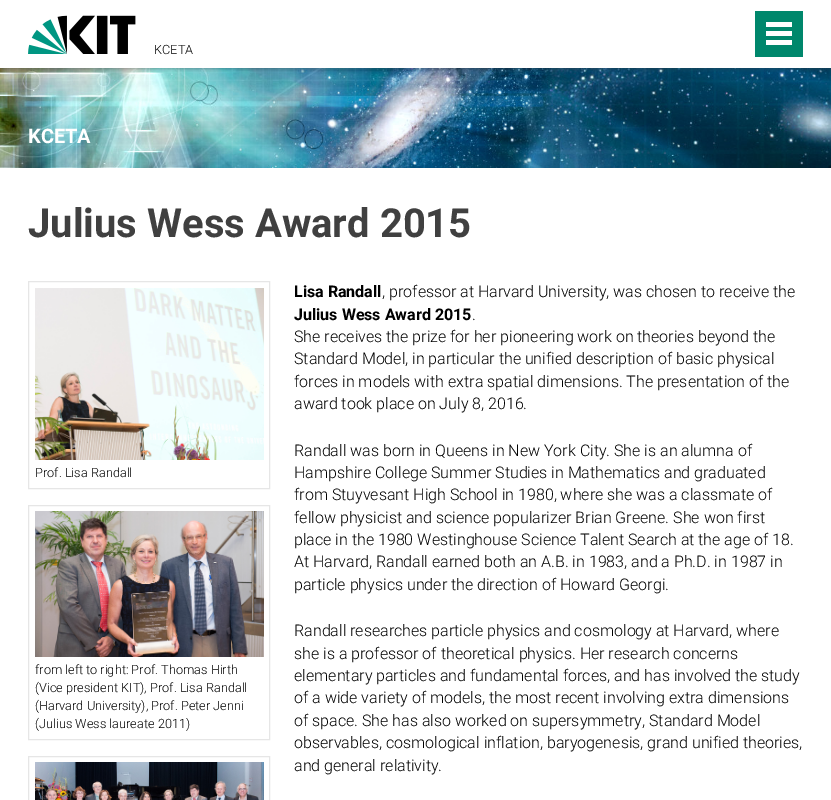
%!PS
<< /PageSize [831 800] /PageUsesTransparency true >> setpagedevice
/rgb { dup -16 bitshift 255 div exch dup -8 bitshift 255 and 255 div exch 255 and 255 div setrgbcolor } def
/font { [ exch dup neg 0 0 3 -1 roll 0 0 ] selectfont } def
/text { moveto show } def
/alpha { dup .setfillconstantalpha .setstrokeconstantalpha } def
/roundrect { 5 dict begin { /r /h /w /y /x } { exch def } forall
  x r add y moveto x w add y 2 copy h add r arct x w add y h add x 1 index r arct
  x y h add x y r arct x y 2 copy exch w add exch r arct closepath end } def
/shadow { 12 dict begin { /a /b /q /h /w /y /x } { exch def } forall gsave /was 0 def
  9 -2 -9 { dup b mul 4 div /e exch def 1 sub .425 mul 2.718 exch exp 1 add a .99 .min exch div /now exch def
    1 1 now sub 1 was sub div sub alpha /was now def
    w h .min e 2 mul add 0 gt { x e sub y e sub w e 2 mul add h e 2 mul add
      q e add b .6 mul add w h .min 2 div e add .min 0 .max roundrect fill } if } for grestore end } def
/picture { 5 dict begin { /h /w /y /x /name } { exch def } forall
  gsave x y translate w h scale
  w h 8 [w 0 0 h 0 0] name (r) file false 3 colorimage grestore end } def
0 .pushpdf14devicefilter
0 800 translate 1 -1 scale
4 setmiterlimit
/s1 { /Roboto-Light 12.75 font 16#000000 rgb } def
/s2 { /Roboto-Bold 20 font 16#FFFFFF rgb } def
/s3 { /Roboto-Bold 40 font 16#404040 rgb } def
/s4 { /Roboto-Bold 16 font 16#000000 rgb } def
/s5 { /Roboto-Light 16 font 16#000000 rgb } def
16#FFFFFF rgb
0 0 831 800 rectfill
(pic2.raw) 0 68 831 100 picture
gsave
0 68 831 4 rectclip
16#404040 rgb
0 0 831 68 0 2.5 0.5 shadow
grestore
(pic1.raw) 28 15 108 39 picture
s1
(KCETA) 154 54 text
16#00876C rgb
755 11 48 46 rectfill
16#FFFFFF rgb
766 40 26 5 rectfill
766 31 26 5 rectfill
766 22 26 5 rectfill
s2
(KCETA) 28 143 text
s3
(Julius Wess Award 2015) 28 237 text
16#E6E6E6 rgb
28.5 281.5 241 207 rectstroke
(pic3.raw) 35 288 229 172 picture
s1
(Prof. Lisa Randall) 35 477 text
16#E6E6E6 rgb
28.5 505.5 241 234 rectstroke
(pic4.raw) 35 511 229 146 picture
s1
(from left to right: Prof. Thomas Hirth) 35 674 text
(\(Vice president KIT\), Prof. Lisa Randall) 35 692 text
(\(Harvard University\), Prof. Peter Jenni) 35 710 text
(\(Julius Wess laureate 2011\)) 35 728 text
16#E6E6E6 rgb
28.5 756.5 241 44 rectstroke
(pic5.raw) 35 762 229 38 picture
s4
(Lisa Randall) 294 297 text
s5
(, professor at Harvard University, was chosen to receive the) 382 297 text
s4
(Julius Wess Award 2015) 294 320 text
s5
(.) 472 320 text
(She receives the prize for her pioneering work on theories beyond the) 294 342 text
(Standard Model, in particular the unified description of basic physical) 294 364 text
(forces in models with extra spatial dimensions. The presentation of the) 294 387 text
(award took place on July 8, 2016.) 294 409 text
(Randall was born in Queens in New York City. She is an alumna of) 294 456 text
(Hampshire College Summer Studies in Mathematics and graduated) 294 478 text
(from Stuyvesant High School in 1980, where she was a classmate of) 294 500 text
(fellow physicist and science popularizer Brian Greene. She won first) 294 523 text
(place in the 1980 Westinghouse Science Talent Search at the age of 18.) 294 545 text
(At Harvard, Randall earned both an A.B. in 1983, and a Ph.D. in 1987 in) 294 567 text
(particle physics under the direction of Howard Georgi.) 294 590 text
(Randall researches particle physics and cosmology at Harvard, where) 294 636 text
(she is a professor of theoretical physics. Her research concerns) 294 659 text
(elementary particles and fundamental forces, and has involved the study) 294 681 text
(of a wide variety of models, the most recent involving extra dimensions) 294 703 text
(of space. She has also worked on supersymmetry, Standard Model) 294 726 text
(observables, cosmological inflation, baryogenesis, grand unified theories,) 294 748 text
(and general relativity.) 294 771 text
.poppdf14devicefilter showpage
